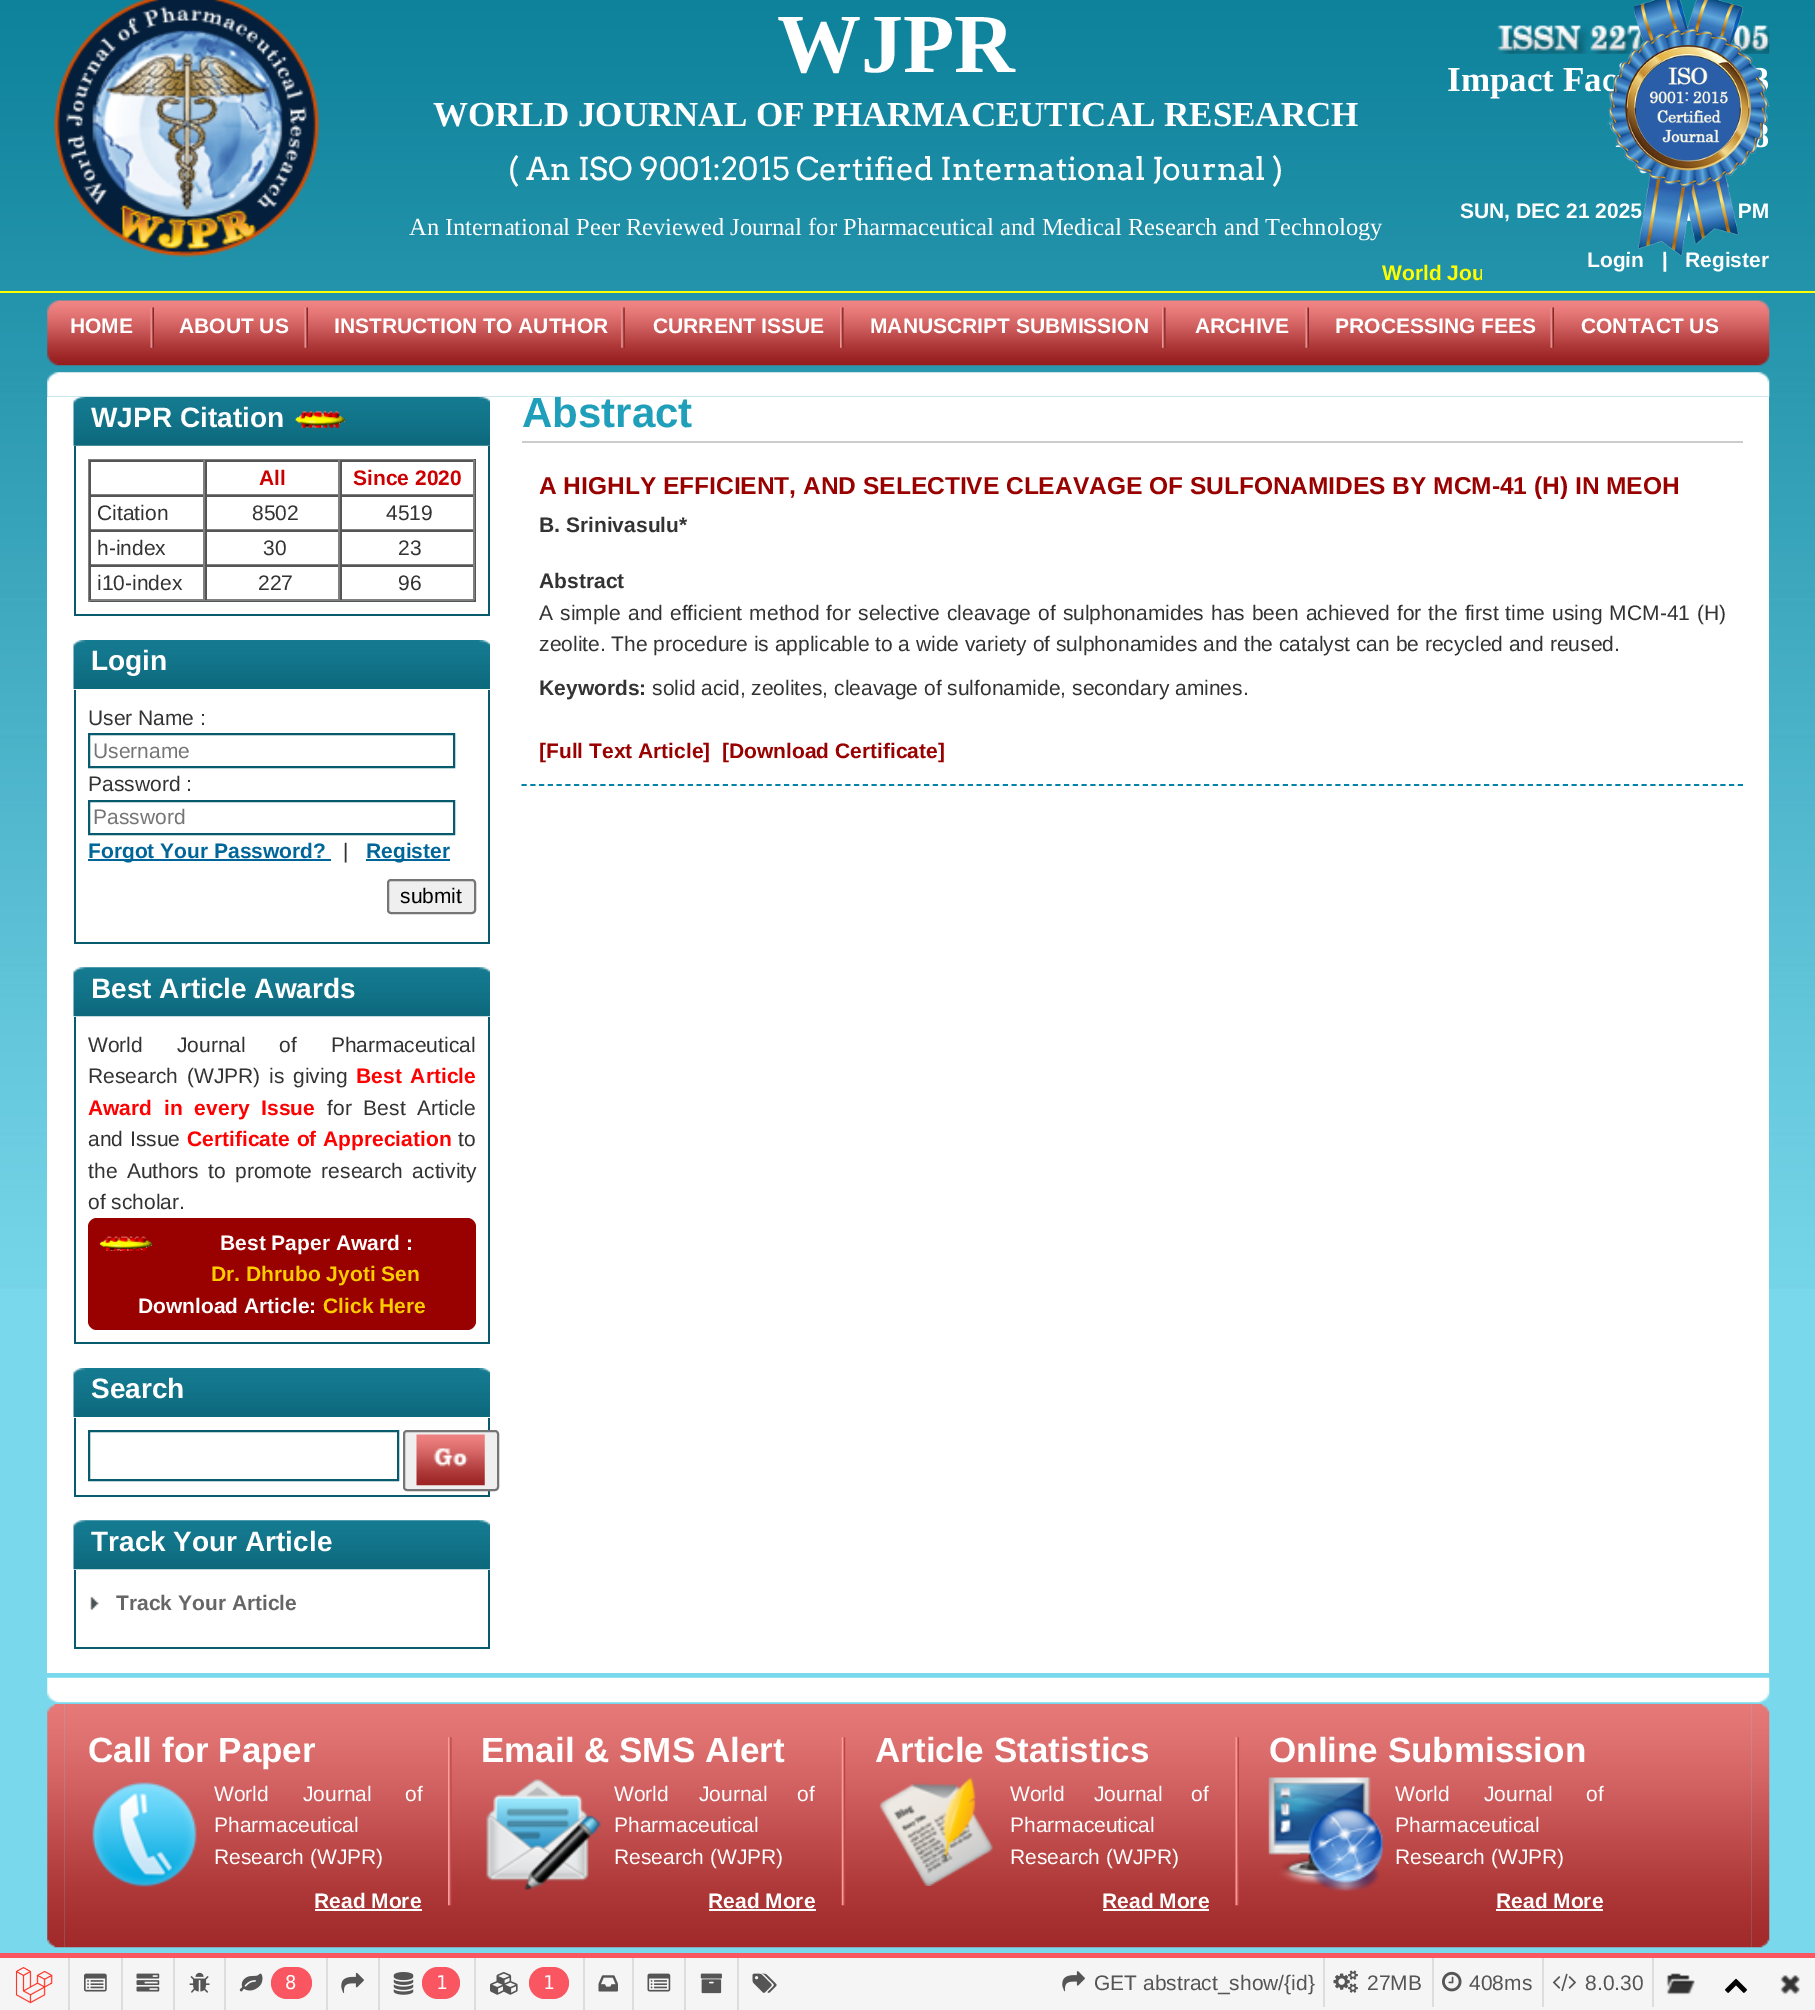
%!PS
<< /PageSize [1815 2010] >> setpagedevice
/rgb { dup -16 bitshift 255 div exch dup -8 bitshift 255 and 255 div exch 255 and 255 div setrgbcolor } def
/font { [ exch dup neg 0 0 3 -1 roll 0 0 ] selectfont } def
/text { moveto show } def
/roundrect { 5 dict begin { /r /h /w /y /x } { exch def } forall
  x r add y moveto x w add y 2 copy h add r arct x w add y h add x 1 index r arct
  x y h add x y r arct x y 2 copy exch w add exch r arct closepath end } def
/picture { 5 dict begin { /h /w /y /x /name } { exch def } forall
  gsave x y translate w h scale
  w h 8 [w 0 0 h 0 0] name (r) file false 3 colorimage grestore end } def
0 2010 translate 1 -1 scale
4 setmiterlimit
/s1 { /LiberationSerif-Bold 84 font 16#FFFFFF rgb } def
/s2 { /LiberationSerif-Bold 35 font 16#FFFFFF rgb } def
/s3 { /Arvo-Regular 31.5 font 16#FFFFFF rgb } def
/s4 { /LiberationSerif-Regular 24.5 font 16#FFFFFF rgb } def
/s5 { /LiberationSans-Bold 21 font 16#FFFF00 rgb } def
/s6 { /LiberationSans-Bold 21 font 16#FFFFFF rgb } def
/s7 { /LiberationSans-Bold 42 font 16#209FBB rgb } def
/s8 { /LiberationSans-Bold 28 font 16#FFFFFF rgb } def
/s9 { /LiberationSans-Bold 21 font 16#CC0000 rgb } def
/s10 { /LiberationSans-Regular 21 font 16#333333 rgb } def
/s11 { /LiberationSans-Regular 21 font 16#757575 rgb } def
/s12 { /LiberationSans-Bold 21 font 16#006699 rgb } def
/s13 { /LiberationSans-Regular 21 font 16#000000 rgb } def
/s14 { /LiberationSans-Bold 21 font 16#FFCC00 rgb } def
/s15 { /LiberationSans-Bold 21 font 16#666666 rgb } def
/s16 { /LiberationSans-Bold 24.5 font 16#990000 rgb } def
/s17 { /LiberationSans-Bold 21 font 16#333333 rgb } def
/s18 { /LiberationSans-Bold 21 font 16#990000 rgb } def
/s19 { /LiberationSans-Bold 35 font 16#FFFFFF rgb } def
/s20 { /LiberationSans-Regular 21 font 16#FFFFFF rgb } def
/s21 { /DejaVuSansMono-Regular 19 font 16#FFFFFF rgb } def
/s22 { /LiberationSans-Regular 21 font 16#555555 rgb } def
16#7AD8EC rgb
0 0 1815 2010 rectfill
(pic1.raw) 0 0 1815 1289 picture
16#FFFF00 rgb
0 291 1815 2 rectfill
(pic2.raw) 53 0 266 258 picture
s1
(WJPR) 777 72 text
s2
(WORLD JOURNAL OF PHARMACEUTICAL RESEARCH) 433 126 text
s3
(\( An ISO 9001:2015 Certified International Journal \)) 508 180 text
s4
(An International Peer Reviewed Journal for Pharmaceutical and Medical Research and Technology) 409 235 text
gsave
275 257 1207 32 rectclip
s5
(World Jou) 1382 280 text
grestore
(pic4.raw) 1497 25 273 29 picture
s2
(Impact Fac) 1447 91 text
s6
(SUN, DEC 21 2025) 1460 218 text
(PM) 1738 218 text
(Login) 1587 267 text
(|) 1662 267 text
(Register) 1685 267 text
(pic3.raw) 1607 0 163 256 picture
(pic5.raw) 47 300 1723 66 picture
(pic6.raw) 150 307 4 41 picture
(HOME) 70 333 text
(pic6.raw) 304 307 4 41 picture
(ABOUT US) 179 333 text
(pic7.raw) 621 307 4 41 picture
(INSTRUCTION TO AUTHOR) 334 333 text
(pic8.raw) 840 307 4 41 picture
(CURRENT ISSUE) 653 333 text
(pic8.raw) 1162 307 4 41 picture
(MANUSCRIPT SUBMISSION) 870 333 text
(pic6.raw) 1305 307 4 41 picture
(ARCHIVE) 1195 333 text
(pic6.raw) 1550 307 4 41 picture
(PROCESSING FEES) 1335 333 text
(CONTACT US) 1581 333 text
47 397 1722 1276 rectfill
(pic10.raw) 73 396 417 50 picture
s7
(Abstract) 522 427 text
(pic9.raw) 47 372 1723 25 picture
s8
(WJPR Citation) 91 427 text
(pic11.raw) 295 411 50 17 picture
16#085B6D rgb
488 446 2 170 rectfill
74 614 416 2 rectfill
74 446 2 170 rectfill
16#808080 rgb
88 459 388 1 rectfill
16#555555 rgb
474 459 2 143 rectfill
88 600 388 2 rectfill
16#808080 rgb
88 459 2 143 rectfill
16#555555 rgb
89 460 385 2 rectfill
16#808080 rgb
203 460 2 35 rectfill
89 494 116 1 rectfill
16#555555 rgb
89 460 2 35 rectfill
16#808080 rgb
338 460 2 35 rectfill
205 494 135 1 rectfill
16#555555 rgb
205 460 2 35 rectfill
s9
(All) 259 485 text
16#808080 rgb
473 460 2 35 rectfill
340 494 134 1 rectfill
16#555555 rgb
340 460 2 35 rectfill
s9
(Since 2020) 353 485 text
16#555555 rgb
89 495 385 2 rectfill
16#808080 rgb
203 495 2 35 rectfill
89 529 116 1 rectfill
16#555555 rgb
89 495 2 35 rectfill
s10
(Citation) 97 520 text
16#808080 rgb
338 495 2 35 rectfill
205 529 135 1 rectfill
16#555555 rgb
205 495 2 35 rectfill
s10
(8502) 252 520 text
16#808080 rgb
473 495 2 35 rectfill
340 529 134 1 rectfill
16#555555 rgb
340 495 2 35 rectfill
s10
(4519) 386 520 text
16#555555 rgb
89 530 385 2 rectfill
16#808080 rgb
203 530 2 35 rectfill
89 564 116 1 rectfill
16#555555 rgb
89 530 2 35 rectfill
s10
(h-index) 97 555 text
16#808080 rgb
338 530 2 35 rectfill
205 564 135 1 rectfill
16#555555 rgb
205 530 2 35 rectfill
s10
(30) 263 555 text
16#808080 rgb
473 530 2 35 rectfill
340 564 134 1 rectfill
16#555555 rgb
340 530 2 35 rectfill
s10
(23) 398 555 text
16#555555 rgb
89 565 385 2 rectfill
16#808080 rgb
203 565 2 35 rectfill
89 599 116 2 rectfill
16#555555 rgb
89 565 2 35 rectfill
s10
(i10-index) 97 590 text
16#808080 rgb
338 565 2 35 rectfill
205 599 135 2 rectfill
16#555555 rgb
205 565 2 35 rectfill
s10
(227) 258 590 text
16#808080 rgb
473 565 2 35 rectfill
340 599 134 2 rectfill
16#555555 rgb
340 565 2 35 rectfill
s10
(96) 398 590 text
(pic12.raw) 73 640 417 49 picture
s8
(Login) 91 670 text
16#085B6D rgb
488 690 2 253 rectfill
74 942 416 2 rectfill
74 690 2 253 rectfill
s10
(User Name :) 88 725 text
16#085B6D rgb
2 setlinewidth
89 734 365 33 rectstroke
s11
(Username) 93 758 text
s10
(Password :) 88 791 text
16#085B6D rgb
89 801 365 33 rectstroke
s11
(Password) 93 824 text
16#006699 rgb
88 859 243 2 rectfill
s12
(Forgot Your Password?) 88 858 text
s10
(|) 343 858 text
16#006699 rgb
366 859 84 2 rectfill
s12
(Register) 366 858 text
16#EFEFEF rgb
388 880 87 33 3 roundrect gsave fill grestore
16#767676 rgb
stroke
s13
(submit) 400 903 text
(pic13.raw) 73 967 417 50 picture
s8
(Best Article Awards) 91 998 text
16#085B6D rgb
488 1017 2 327 rectfill
74 1342 416 2 rectfill
74 1017 2 327 rectfill
/LiberationSans-Regular 21 font
16#333333 rgb
88 1052 moveto 28 0 32 (World Journal of Pharmaceutical) widthshow
88 1083 moveto 3 0 32 (Research \(WJPR\) is giving) widthshow
/LiberationSans-Bold 21 font
16#FF0000 rgb
356 1083 moveto 3 0 32 (Best Article) widthshow
88 1115 moveto 6 0 32 (Award in every Issue) widthshow
/LiberationSans-Regular 21 font
16#333333 rgb
327 1115 moveto 6 0 32 (for Best Article) widthshow
88 1146 moveto 1 0 32 (and Issue) widthshow
/LiberationSans-Bold 21 font
16#FF0000 rgb
187 1146 moveto 1 0 32 (Certificate of Appreciation) widthshow
s10
(to) 458 1146 text
88 1178 moveto 3.5 0 32 (the Authors to promote research activity) widthshow
(of scholar.) 88 1209 text
16#990000 rgb
88 1218 388 112 9 roundrect fill
(pic14.raw) 99 1236 54 15 picture
s6
(Best Paper Award :) 220 1250 text
s14
(Dr. Dhrubo Jyoti Sen) 211 1281 text
s6
(Download Article:) 138 1313 text
s14
(Click Here) 323 1313 text
(pic12.raw) 73 1368 417 49 picture
s8
(Search) 91 1398 text
16#085B6D rgb
488 1418 2 78 rectfill
74 1495 416 2 rectfill
74 1418 2 78 rectfill
89 1431 309 49 rectstroke
16#EFEFEF rgb
404 1431 94 59 3 roundrect gsave fill grestore
16#767676 rgb
stroke
(pic15.raw) 416 1434 69 52 picture
(pic13.raw) 73 1520 417 50 picture
s8
(Track Your Article) 91 1551 text
16#085B6D rgb
488 1570 2 79 rectfill
74 1647 416 2 rectfill
74 1570 2 79 rectfill
(pic16.raw) 90 1596 9 14 picture
s15
(Track Your Article) 116 1610 text
16#CCCCCC rgb
522 441 1221 2 rectfill
16#0283A7 rgb
1.8 setlinewidth
[5.25 3.5] 0 setdash
521.5 785 moveto 1743 785 lineto stroke
s16
(A HIGHLY EFFICIENT, AND SELECTIVE CLEAVAGE OF SULFONAMIDES BY MCM-41 \(H\) IN MEOH) 539 494 text
s17
(B. Srinivasulu*) 539 532 text
(Abstract) 539 588 text
/LiberationSans-Regular 21 font
539 620 moveto 1.25 0 32 (A simple and efficient method for selective cleavage of sulphonamides has been achieved for the first time using MCM-41 \(H\)) widthshow
(zeolite. The procedure is applicable to a wide variety of sulphonamides and the catalyst can be recycled and reused.) 539 651 text
s17
(Keywords:) 539 695 text
s10
(solid acid, zeolites, cleavage of sulfonamide, secondary amines.) 652 695 text
s18
([Full Text Article]) 539 758 text
([Download Certificate]) 722 758 text
(pic17.raw) 47 1677 1723 26 picture
(pic18.raw) 47 1704 18 244 picture
(pic19.raw) 64 1704 1688 244 picture
(pic20.raw) 448 1737 4 169 picture
s19
(Call for Paper) 88 1762 text
(pic21.raw) 92 1782 105 105 picture
/LiberationSans-Regular 21 font
214 1801 moveto 28 0 32 (World Journal of) widthshow
(Pharmaceutical) 214 1832 text
(Research \(WJPR\)) 214 1864 text
s6
(Read More) 314 1908 text
315 1909 107 2 rectfill
(pic22.raw) 841 1737 5 169 picture
s19
(Email & SMS Alert) 481 1762 text
(pic23.raw) 486 1779 115 111 picture
/LiberationSans-Regular 21 font
614 1801 moveto 24 0 32 (World Journal of) widthshow
(Pharmaceutical) 614 1832 text
(Research \(WJPR\)) 614 1864 text
s6
(Read More) 708 1908 text
709 1909 107 2 rectfill
(pic24.raw) 1235 1737 4 169 picture
s19
(Article Statistics) 875 1762 text
(pic25.raw) 879 1777 114 109 picture
/LiberationSans-Regular 21 font
1010 1801 moveto 23 0 32 (World Journal of) widthshow
(Pharmaceutical) 1010 1832 text
(Research \(WJPR\)) 1010 1864 text
s6
(Read More) 1102 1908 text
1103 1909 106 2 rectfill
s19
(Online Submission) 1269 1762 text
(pic26.raw) 1268 1777 115 115 picture
/LiberationSans-Regular 21 font
1395 1801 moveto 28 0 32 (World Journal of) widthshow
(Pharmaceutical) 1395 1832 text
(Research \(WJPR\)) 1395 1864 text
s6
(Read More) 1496 1908 text
1496 1909 107 2 rectfill
(pic27.raw) 1751 1704 19 244 picture
16#FA5661 rgb
0 1953 1815 5 rectfill
16#F5F5F5 rgb
0 1958 1815 52 rectfill
(pic28.raw) 15 1967 38 37 picture
16#DDDDDD rgb
68 1958 2 52 rectfill
(pic29.raw) 84 1973 23 19 picture
121 1958 2 52 rectfill
(pic30.raw) 136 1973 24 19 picture
173 1958 2 52 rectfill
(pic31.raw) 189 1972 21 21 picture
224 1958 2 52 rectfill
(pic32.raw) 239 1973 24 19 picture
16#FA5661 rgb
271 1967 41 32 16 roundrect fill
s21
(8) 285 1989 text
16#DDDDDD rgb
326 1958 2 52 rectfill
(pic33.raw) 341 1972 23 22 picture
378 1958 2 52 rectfill
(pic34.raw) 393 1972 21 23 picture
16#FA5661 rgb
422 1967 38 32 16 roundrect fill
s21
(1) 436 1989 text
16#DDDDDD rgb
474 1958 2 52 rectfill
(pic35.raw) 490 1972 28 23 picture
16#FA5661 rgb
529 1967 40 32 16 roundrect fill
s21
(1) 543 1989 text
16#DDDDDD rgb
583 1958 2 52 rectfill
(pic36.raw) 598 1975 20 17 picture
632 1958 2 52 rectfill
(pic37.raw) 647 1973 24 19 picture
684 1958 2 52 rectfill
(pic38.raw) 700 1973 22 21 picture
737 1958 2 52 rectfill
(pic39.raw) 752 1973 25 20 picture
1323 1958 2 49 rectfill
(pic40.raw) 1062 1971 23 21 picture
s22
(GET abstract_show/{id}) 1094 1990 text
16#DDDDDD rgb
1432 1958 2 49 rectfill
(pic41.raw) 1333 1970 25 23 picture
s22
(27MB) 1367 1990 text
16#DDDDDD rgb
1542 1958 2 49 rectfill
(pic42.raw) 1442 1971 20 21 picture
s22
(408ms) 1469 1990 text
16#DDDDDD rgb
1652 1958 2 49 rectfill
(pic43.raw) 1552 1973 24 19 picture
s22
(8.0.30) 1585 1990 text
(pic44.raw) 1666 1973 29 22 picture
(pic45.raw) 1725 1978 22 15 picture
(pic46.raw) 1780 1975 20 20 picture
showpage
